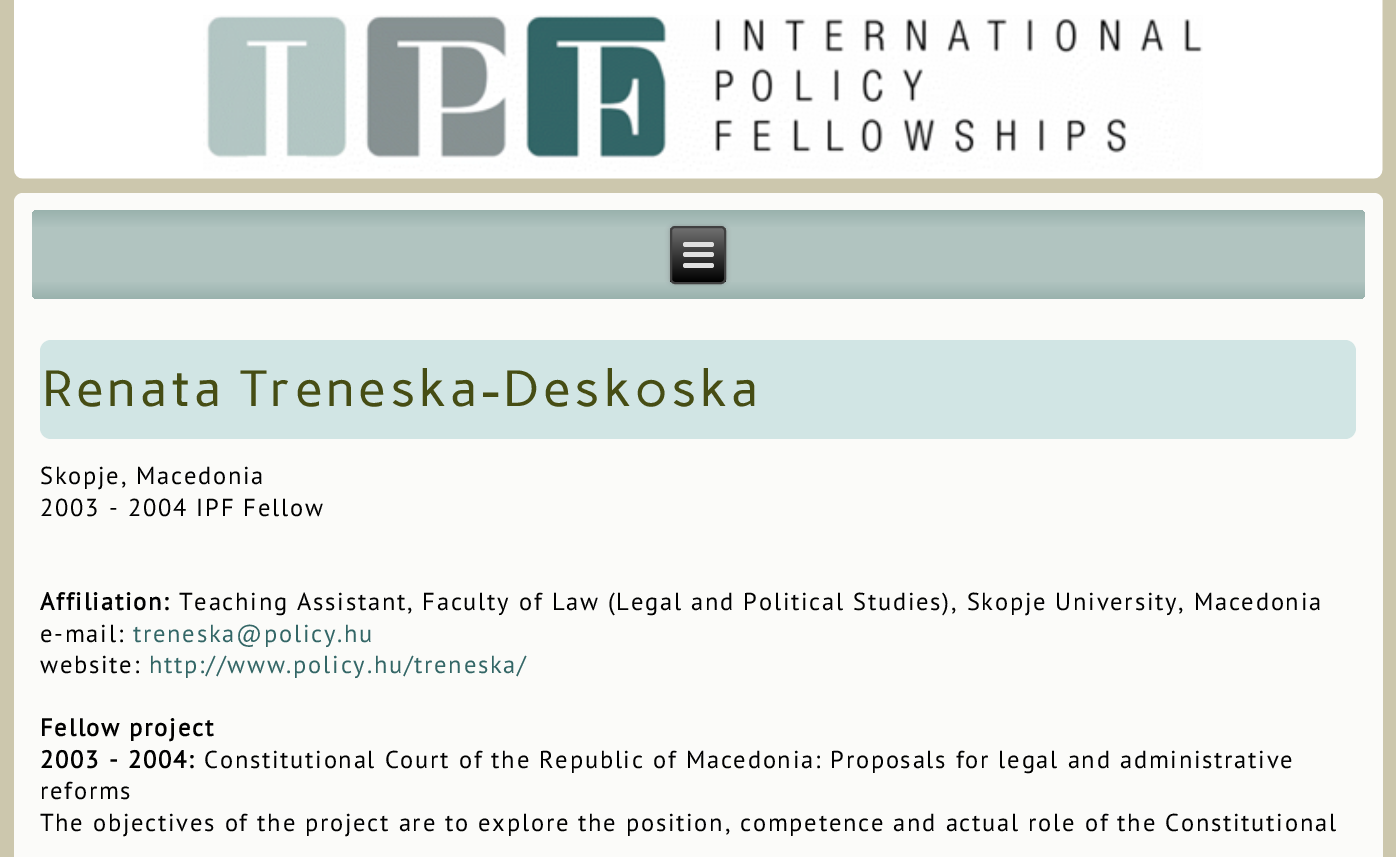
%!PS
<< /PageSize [1396 857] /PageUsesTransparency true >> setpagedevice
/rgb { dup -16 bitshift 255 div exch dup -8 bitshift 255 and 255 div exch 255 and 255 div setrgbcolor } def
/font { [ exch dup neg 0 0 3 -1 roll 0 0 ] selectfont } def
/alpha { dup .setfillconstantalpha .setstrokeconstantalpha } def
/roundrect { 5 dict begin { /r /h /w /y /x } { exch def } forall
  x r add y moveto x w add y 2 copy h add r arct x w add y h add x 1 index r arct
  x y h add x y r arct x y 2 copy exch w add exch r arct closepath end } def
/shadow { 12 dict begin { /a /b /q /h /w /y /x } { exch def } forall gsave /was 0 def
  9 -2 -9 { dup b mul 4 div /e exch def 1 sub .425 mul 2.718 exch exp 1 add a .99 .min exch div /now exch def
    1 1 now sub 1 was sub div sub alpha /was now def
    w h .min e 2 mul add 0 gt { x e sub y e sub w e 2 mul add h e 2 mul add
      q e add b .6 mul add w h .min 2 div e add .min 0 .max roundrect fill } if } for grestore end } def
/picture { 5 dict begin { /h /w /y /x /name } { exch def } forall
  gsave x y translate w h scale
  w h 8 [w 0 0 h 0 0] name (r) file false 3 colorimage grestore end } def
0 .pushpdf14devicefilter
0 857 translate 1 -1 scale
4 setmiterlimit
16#CCC7AD rgb
0 0 1396 857 rectfill
(pic1.raw) 14 0 1369 179 picture
(pic2.raw) 203 15 1000 157 picture
16#FBFBF9 rgb
14 193 1369 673 9 roundrect fill
gsave 32 210 1333 89 5 roundrect clip newpath
<< /ShadingType 2 /ColorSpace /DeviceRGB /Coords [698 210 698 299] /Extend [true true] /Function << /FunctionType 3 /Domain [0 1] /Functions [<< /FunctionType 2 /Domain [0 1] /C0 [0.6 0.698 0.678] /C1 [0.694 0.769 0.753] /N 1 >> << /FunctionType 2 /Domain [0 1] /C0 [0.694 0.769 0.753] /C1 [0.694 0.769 0.753] /N 1 >> << /FunctionType 2 /Domain [0 1] /C0 [0.694 0.769 0.753] /C1 [0.6 0.698 0.678] /N 1 >>] /Bounds [0.2 0.8] /Encode [0 1 0 1 0 1] >> >> shfill grestore
16#000000 rgb
670 226 56 58 5 2.5 0.2 shadow
gsave
670 226 56 58 5 roundrect clip newpath
gsave 670 228 moveto 726 228 lineto 726 282 lineto 670 282 lineto closepath clip newpath
<< /ShadingType 2 /ColorSpace /DeviceRGB /Coords [698 228 698 282] /Extend [true true] /Function << /FunctionType 2 /Domain [0 1] /C0 [0.439 0.439 0.439] /C1 [0 0 0] /N 1 >> >> shfill grestore
grestore
16#404040 rgb
2 setlinewidth
671 227 54 56 4 roundrect stroke
16#E0E0E0 rgb
683 242 31 5 2.5 roundrect fill
683 252 31 5 2.5 roundrect fill
683 263 31 5 2.5 roundrect fill
16#D1E5E4 rgb
40 340 1316 99 11 roundrect fill
/Carme-Regular 50.75 font
16#464D14 rgb
42 406 moveto 3.5 0 (Renata Treneska-Deskoska) ashow
/PTSans-Regular 24.5 font
16#000000 rgb
40 484 moveto 1.75 0 (Skopje, Macedonia) ashow
40 516 moveto 1.75 0 (2003 - 2004 IPF Fellow) ashow
/PTSans-Bold 24.5 font
40 610 moveto 1.75 0 (Affiliation:) ashow
/PTSans-Regular 24.5 font
179 610 moveto 1.75 0 (Teaching Assistant, Faculty of Law \(Legal and Political Studies\), Skopje University, Macedonia) ashow
40 642 moveto 1.75 0 (e-mail:) ashow
16#336666 rgb
133 642 moveto 1.75 0 (treneska@policy.hu) ashow
16#000000 rgb
40 673 moveto 1.75 0 (website:) ashow
16#336666 rgb
149 673 moveto 1.75 0 (http://www.policy.hu/treneska/) ashow
/PTSans-Bold 24.5 font
16#000000 rgb
40 736 moveto 1.75 0 (Fellow project) ashow
40 768 moveto 1.75 0 (2003 - 2004:) ashow
/PTSans-Regular 24.5 font
204 768 moveto 1.75 0 (Constitutional Court of the Republic of Macedonia: Proposals for legal and administrative) ashow
40 799 moveto 1.75 0 (reforms) ashow
40 831 moveto 1.75 0 (The objectives of the project are to explore the position, competence and actual role of the Constitutional) ashow
.poppdf14devicefilter showpage
